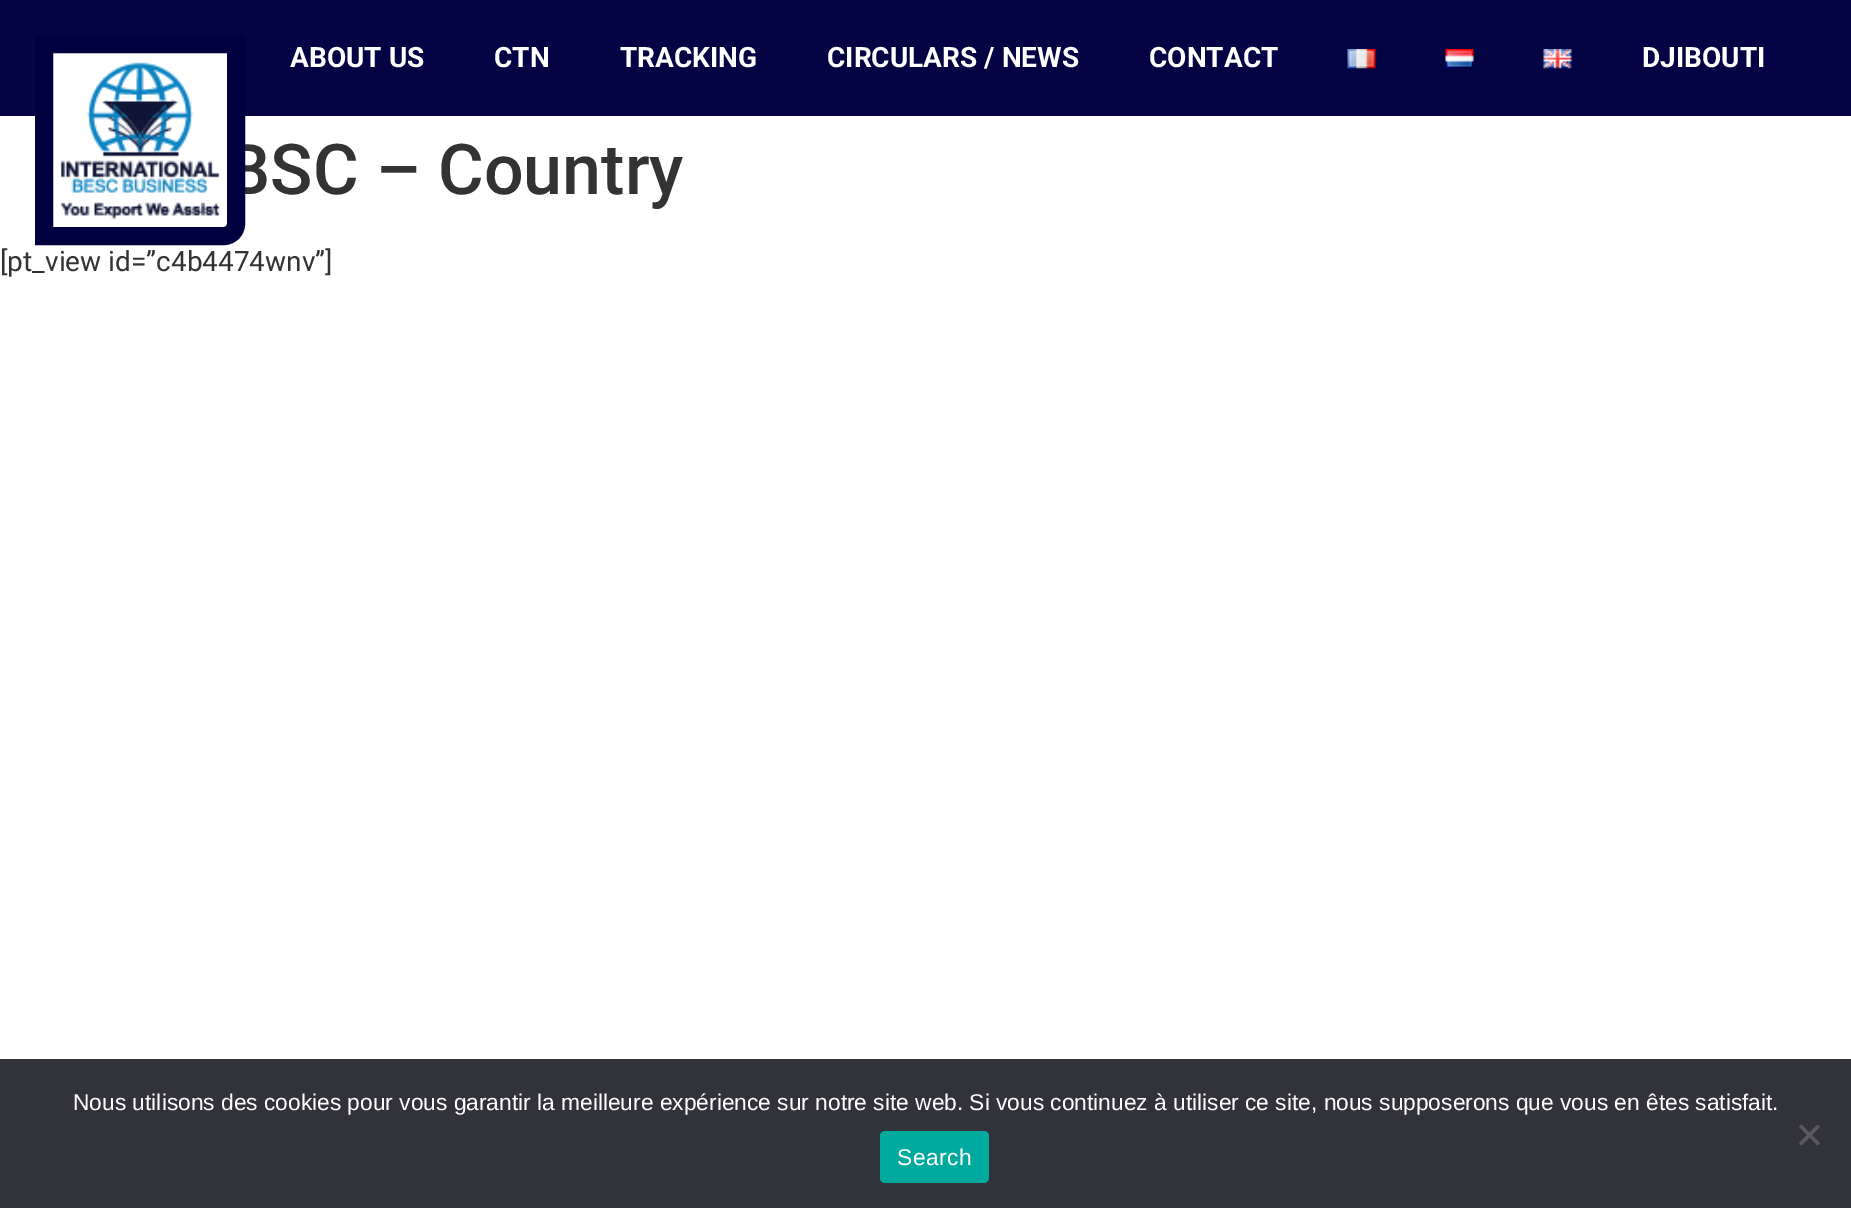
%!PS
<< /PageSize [1851 1208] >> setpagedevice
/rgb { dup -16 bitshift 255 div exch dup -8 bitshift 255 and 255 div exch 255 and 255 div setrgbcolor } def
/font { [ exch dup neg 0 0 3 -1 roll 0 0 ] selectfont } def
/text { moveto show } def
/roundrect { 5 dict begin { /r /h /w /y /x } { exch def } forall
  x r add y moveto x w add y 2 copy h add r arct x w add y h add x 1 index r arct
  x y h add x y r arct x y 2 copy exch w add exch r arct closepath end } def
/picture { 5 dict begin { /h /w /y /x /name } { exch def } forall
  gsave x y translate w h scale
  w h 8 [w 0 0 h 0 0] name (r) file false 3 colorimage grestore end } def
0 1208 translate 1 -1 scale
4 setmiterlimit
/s1 { /Roboto-Medium 70 font 16#333333 rgb } def
/s2 { /Roboto-Bold 28 font 16#FFFFFF rgb } def
/s3 { /Roboto-Regular 28 font 16#333333 rgb } def
/s4 { /LiberationSans-Regular 22.75 font 16#FFFFFF rgb } def
16#FFFFFF rgb
0 0 1851 1208 rectfill
16#040444 rgb
0 0 1851 116 rectfill
s1
(BSC – Country) 226 194 text
16#FFFFFF rgb
44 44 moveto 236 44 lineto 236 224 lineto 236 230.5 230.5 236 224 236 curveto 44 236 lineto closepath gsave fill grestore
16#000040 rgb
18 setlinewidth
stroke
(pic1.raw) 60 62 160 158 picture
s2
(ABOUT US) 290 67 text
(CTN) 494 67 text
(TRACKING) 620 67 text
(CIRCULARS / NEWS) 827 67 text
(CONTACT) 1149 67 text
(pic2.raw) 1347 49 29 20 picture
(pic3.raw) 1445 49 29 20 picture
(pic4.raw) 1543 49 29 20 picture
(DJIBOUTI) 1642 67 text
s3
([pt_view id=”c4b4474wnv”]) 0 271 text
16#32323A rgb
0 1059 1851 149 rectfill
s4
(Nous utilisons des cookies pour vous garantir la meilleure expérience sur notre site web. Si vous continuez à utiliser ce site, nous supposerons que vous en êtes satisfait.) 73 1110 text
16#59595D rgb
1817.5 1124.5 moveto 1820 1127 lineto 1801.5 1145.5 lineto 1799 1143 lineto closepath fill
1799 1127 moveto 1801.5 1124.5 lineto 1820 1143 lineto 1817.5 1145.5 lineto closepath fill
16#00A99D rgb
880 1131 109 52 5 roundrect fill
16#FFFFFF rgb
897 1165 moveto 0.5 0 (Search) ashow
showpage
